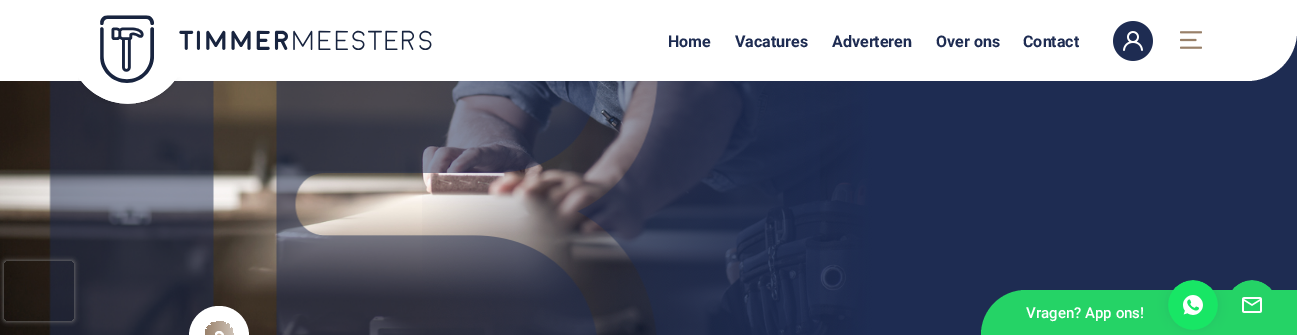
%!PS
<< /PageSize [1297 335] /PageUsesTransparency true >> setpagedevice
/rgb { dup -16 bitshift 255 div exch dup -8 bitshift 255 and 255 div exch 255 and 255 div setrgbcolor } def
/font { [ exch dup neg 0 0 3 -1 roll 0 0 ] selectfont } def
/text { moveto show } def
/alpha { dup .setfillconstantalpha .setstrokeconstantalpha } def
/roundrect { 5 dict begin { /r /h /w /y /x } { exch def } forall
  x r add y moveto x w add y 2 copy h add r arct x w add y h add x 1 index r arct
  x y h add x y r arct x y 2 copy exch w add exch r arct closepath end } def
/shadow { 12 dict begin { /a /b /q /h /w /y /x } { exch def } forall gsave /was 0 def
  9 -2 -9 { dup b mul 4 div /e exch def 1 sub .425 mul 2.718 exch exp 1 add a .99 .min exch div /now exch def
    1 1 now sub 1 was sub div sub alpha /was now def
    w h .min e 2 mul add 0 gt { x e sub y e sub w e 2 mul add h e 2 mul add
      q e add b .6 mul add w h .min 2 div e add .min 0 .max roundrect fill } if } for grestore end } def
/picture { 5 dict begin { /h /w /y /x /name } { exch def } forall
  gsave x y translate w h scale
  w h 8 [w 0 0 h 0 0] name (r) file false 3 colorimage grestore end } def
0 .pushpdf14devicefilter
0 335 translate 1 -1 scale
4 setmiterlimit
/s1 { /Roboto-Bold 16 font 16#1E2C52 rgb } def
/s2 { /Roboto-Medium 15 font 16#FFFFFF rgb } def
16#FFFFFF rgb
0 0 1297 335 rectfill
(pic2.raw) 0 81 871 254 picture
(pic3.raw) 49 81 772 254 picture
(pic1.raw) 422 31 875 304 picture
189 306 60 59 30 roundrect fill
gsave 222 321 moveto 225 322.5 lineto 225 323 225 324.5 226.5 324.5 curveto 227 324.5 227 324 227.5 323 curveto 229.5 325.5 lineto 229.5 326.5 229 328 230 328 curveto 231 328.5 231 328 231.5 327.5 curveto 233 330.5 lineto 232 332 lineto 231.5 333 233 333.5 233.5 333 curveto 233.5 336 lineto 233 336.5 231.5 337 232.5 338 curveto 232.5 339 233 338.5 234 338.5 curveto 232.5 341.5 lineto 231.5 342 230 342 230.5 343 curveto 230.5 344 231 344 231.5 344 curveto 229 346.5 lineto 228.5 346.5 227 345.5 226.5 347 curveto 226.5 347.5 227 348 227.5 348.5 curveto 224.5 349.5 lineto 224 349 222.5 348 222 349 curveto 221.5 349.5 222 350 222 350.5 curveto 218.5 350.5 lineto 218.5 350 217.5 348.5 216.5 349 curveto 216 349.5 216 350 216 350.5 curveto 213 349.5 lineto 213 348.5 213 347.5 212.5 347.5 curveto 211.5 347 211 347.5 211 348.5 curveto 208.5 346 lineto 208.5 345.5 209 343.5 208 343.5 curveto 207 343.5 207 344 206.5 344.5 curveto 205.5 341 lineto 206 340.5 207 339.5 206 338.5 curveto 205 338.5 lineto 205 335 lineto 206 334.5 206.5 333 205 333 curveto 205 331 lineto 205.5 330 lineto 206.5 330 207.5 330 207.5 329 curveto 208 328.5 207 327.5 206.5 327.5 curveto 209 325 lineto 209.5 325.5 211 326 211.5 324.5 curveto 211.5 324 211 323.5 210.5 323.5 curveto 213.5 322 lineto 214.5 322.5 215.5 323.5 216 322.5 curveto 216.5 322 216.5 321.5 216 321 curveto 219.5 321 lineto 220 322 220.5 323 221.5 322.5 curveto 222 321.5 lineto closepath clip newpath
<< /ShadingType 2 /ColorSpace /DeviceRGB /Coords [204 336 233 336] /Extend [true true] /Function << /FunctionType 2 /Domain [0 1] /C0 [0.596 0.502 0.412] /C1 [0.8 0.753 0.706] /N 1 >> >> shfill grestore
219 331 moveto 220.5 331 221.5 331.5 222.5 332.5 curveto 227.5 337.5 218.5 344 215 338.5 curveto 215 333.5 lineto 216 332 217.5 331 219 331 curveto closepath fill
16#C9B3A1 rgb
217 335 moveto 218.5 332 223 334.5 221 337 curveto 219.5 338 lineto 218.5 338 217.5 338 217 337 curveto closepath fill
16#1E2C52 rgb
0 0 1297 81 50 5 0.1 shadow
16#FFFFFF rgb
0 0 moveto 1297 0 lineto 1297 31 lineto 1297 58.5 1274.5 81 1247 81 curveto 0 81 lineto closepath fill
(pic4.raw) 78 15 354 89 picture
s1
(Home) 668 47 text
(Vacatures) 735 47 text
(Adverteren) 832 47 text
(Over ons) 936 47 text
(Contact) 1023 47 text
(pic5.raw) 1113 21 40 40 picture
(pic6.raw) 1180 31 22 18 picture
gsave
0 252 moveto 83 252 lineto 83 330 lineto 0 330 lineto closepath 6 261 moveto 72 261 lineto 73 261 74 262 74 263 curveto 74 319 lineto 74 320 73 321 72 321 curveto 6 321 lineto 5 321 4 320 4 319 curveto 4 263 lineto 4 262 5 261 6 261 curveto closepath eoclip newpath
16#808080 rgb
4 261 70 60 2 2.5 1 shadow
grestore
16#25D366 rgb
1026 290 moveto 1297 290 lineto 1297 335 lineto 981 335 lineto 981 310 1001 290 1026 290 curveto closepath fill
16#1E2C52 rgb
1168 280 50 50 25 5 0.1 shadow
(pic7.raw) 1168 280 50 50 picture
(pic8.raw) 1232 280 40 33 picture
s2
(Vragen? App ons!) 1026 318 text
.poppdf14devicefilter showpage
